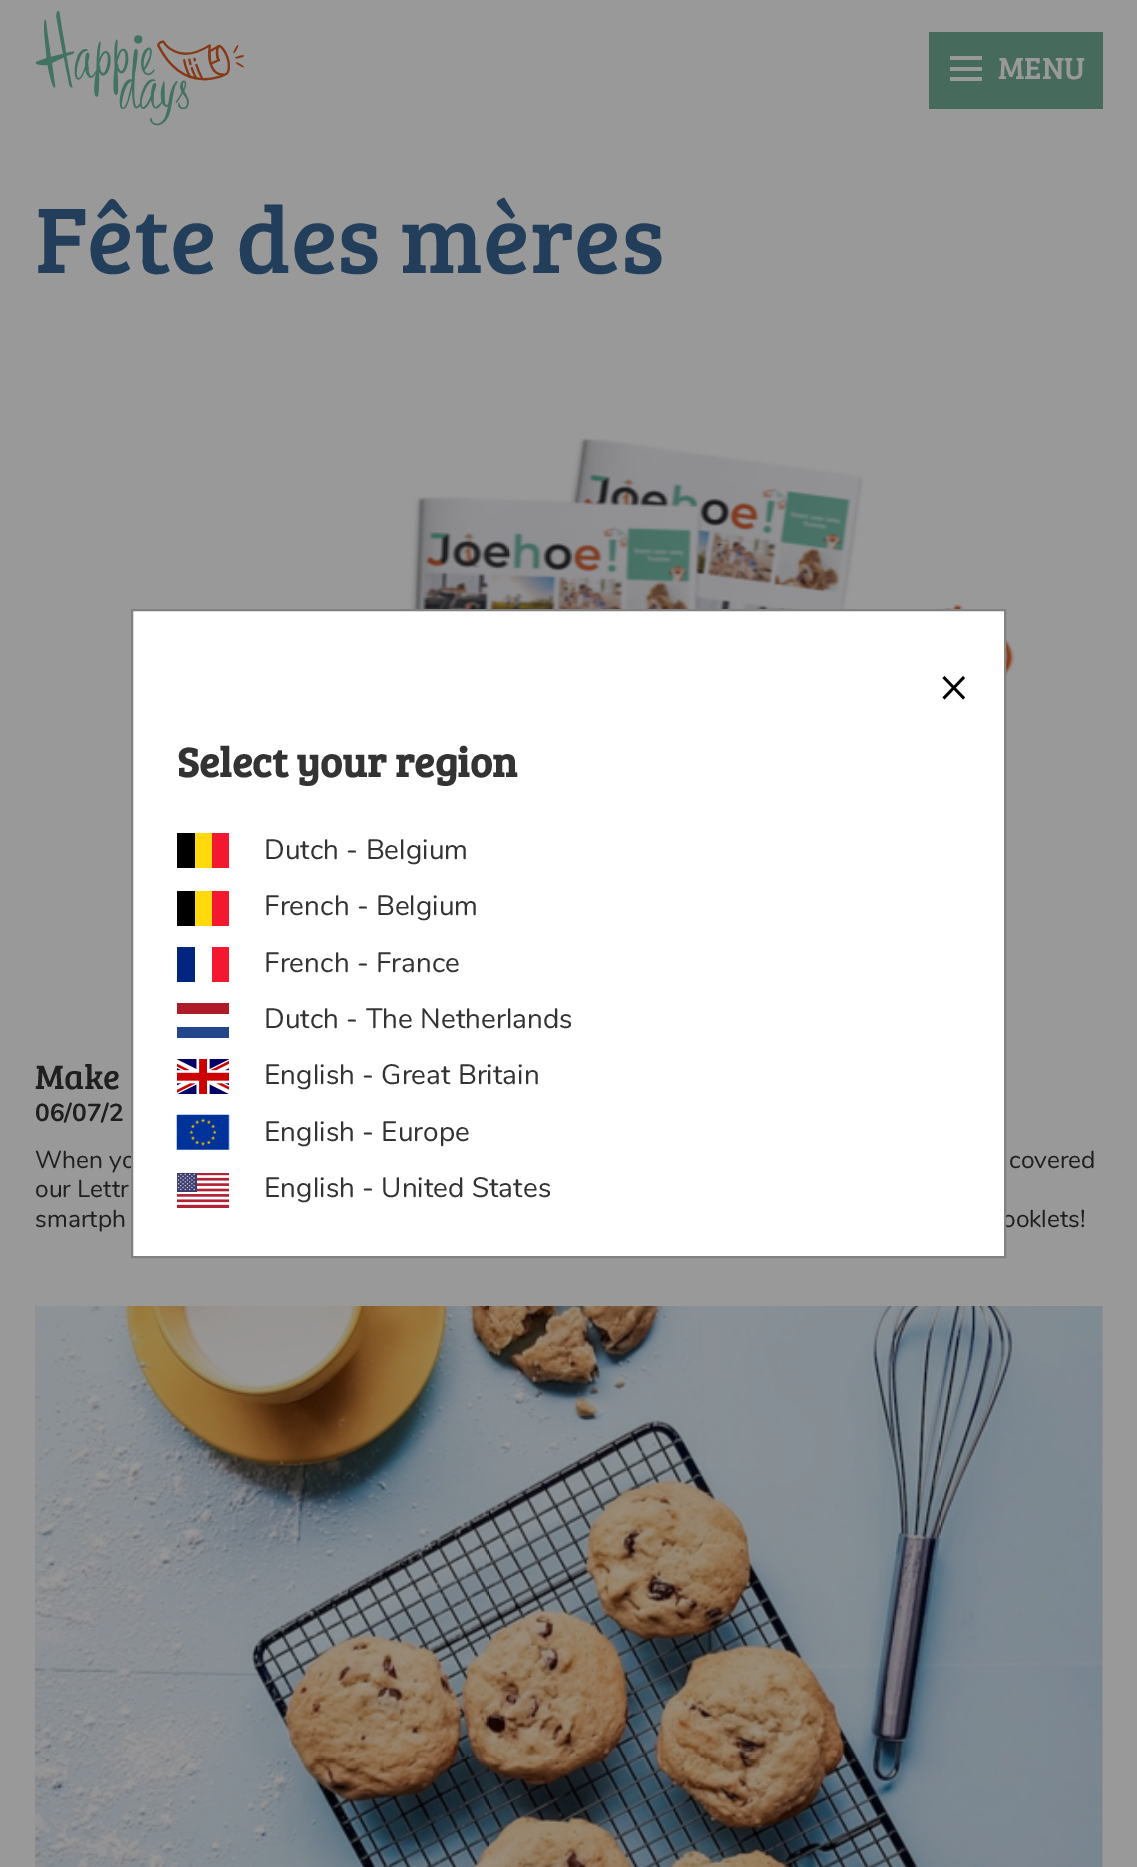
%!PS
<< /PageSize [1137 1867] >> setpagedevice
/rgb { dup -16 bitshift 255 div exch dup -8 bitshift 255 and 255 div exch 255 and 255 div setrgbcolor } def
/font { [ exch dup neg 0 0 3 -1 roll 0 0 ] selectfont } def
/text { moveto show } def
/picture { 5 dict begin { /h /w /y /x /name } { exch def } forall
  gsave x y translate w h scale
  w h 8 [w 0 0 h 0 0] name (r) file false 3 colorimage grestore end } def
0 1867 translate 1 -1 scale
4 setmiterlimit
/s1 { /BreeSerif-Regular 31.5 font 16#999999 rgb } def
/s2 { /BreeSerif-Regular 96.25 font 16#223E5A rgb } def
/s3 { /BreeSerif-Regular 35 font 16#1F1F1F rgb } def
/s4 { /Nunito-Bold 24.5 font 16#1F1F1F rgb } def
/s5 { /Nunito-Regular 24.5 font 16#1F1F1F rgb } def
/s6 { /BreeSerif-Bold 42 font 16#333333 rgb } def
/s7 { /Nunito-Regular 28 font 16#333333 rgb } def
16#999999 rgb
0 0 1137 1867 rectfill
(pic1.raw) 35 11 210 115 picture
16#466A5B rgb
929 32 174 77 rectfill
16#999999 rgb
950 67 32 4 rectfill
950 56 32 4 rectfill
950 77 32 4 rectfill
s1
(MENU) 998 79 text
s2
(Fête des mères) 35 273 text
(pic2.raw) 168 438 847 530 picture
s3
(Make) 35 1089 text
s4
(06/07/2) 35 1121 text
s5
(When yo) 35 1168 text
(covered) 1009 1168 text
(our Lettr) 35 1197 text
(smartph) 35 1227 text
(ooklets!) 1002 1227 text
(pic3.raw) 35 1306 1068 561 picture
16#FFFFFF rgb
132 610 moveto 1005 610 lineto 1005 1257 lineto 132 1257 lineto closepath gsave fill grestore
16#818181 rgb
2 setlinewidth
stroke
(pic4.raw) 942 676 23 24 picture
s6
(Select your region) 177 777 text
16#000000 rgb
177 833 18 35 rectfill
16#FFD90C rgb
195 833 17 35 rectfill
16#F31830 rgb
212 833 17 35 rectfill
s7
(Dutch - Belgium) 264 859 text
16#000000 rgb
177 891 18 35 rectfill
16#FFD90C rgb
195 891 17 35 rectfill
16#F31830 rgb
212 891 17 35 rectfill
s7
(French - Belgium) 264 915 text
16#00267F rgb
177 947 18 35 rectfill
16#F31830 rgb
212 947 17 35 rectfill
s7
(French - France) 264 972 text
16#21468B rgb
177 1027 52 11 rectfill
16#AE1C28 rgb
177 1003 52 11 rectfill
s7
(Dutch - The Netherlands) 264 1028 text
(pic5.raw) 177 1059 52 35 picture
(English - Great Britain) 264 1084 text
(pic6.raw) 176 1114 54 36 picture
(English - Europe) 264 1141 text
(pic7.raw) 177 1173 52 35 picture
(English - United States) 264 1197 text
showpage
